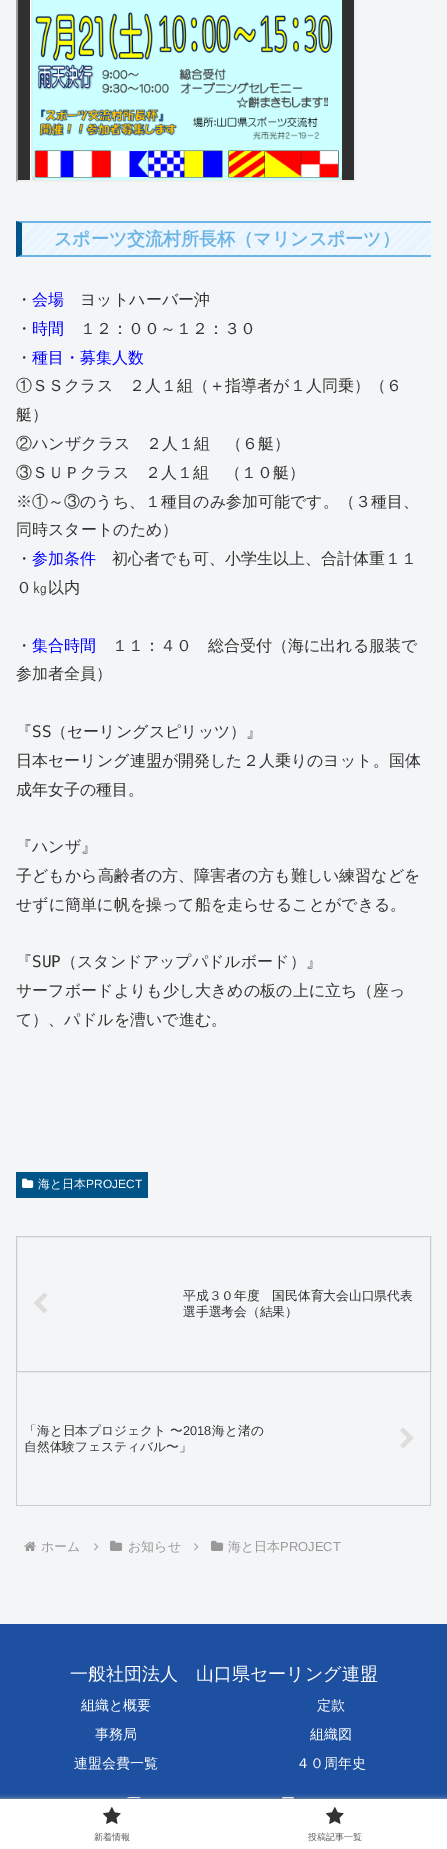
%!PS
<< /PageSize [447 1849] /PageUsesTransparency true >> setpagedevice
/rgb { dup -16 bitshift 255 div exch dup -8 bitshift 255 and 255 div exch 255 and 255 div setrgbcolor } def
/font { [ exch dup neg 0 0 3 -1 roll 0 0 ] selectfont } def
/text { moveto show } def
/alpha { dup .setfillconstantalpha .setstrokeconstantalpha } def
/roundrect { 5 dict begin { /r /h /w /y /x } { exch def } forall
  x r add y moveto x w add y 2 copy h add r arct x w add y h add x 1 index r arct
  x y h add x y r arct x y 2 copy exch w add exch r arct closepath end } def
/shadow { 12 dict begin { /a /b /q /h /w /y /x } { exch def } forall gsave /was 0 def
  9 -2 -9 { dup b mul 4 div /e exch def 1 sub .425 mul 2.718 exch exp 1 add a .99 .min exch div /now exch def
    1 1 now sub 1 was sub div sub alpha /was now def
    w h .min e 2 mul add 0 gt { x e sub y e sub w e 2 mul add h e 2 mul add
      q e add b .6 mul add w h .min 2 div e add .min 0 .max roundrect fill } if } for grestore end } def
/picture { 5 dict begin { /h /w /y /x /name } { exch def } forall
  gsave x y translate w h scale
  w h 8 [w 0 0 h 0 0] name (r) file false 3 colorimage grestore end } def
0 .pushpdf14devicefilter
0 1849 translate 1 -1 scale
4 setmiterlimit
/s1 { /WenQuanYiZenHei-Bold 18 font 16#6CB4E4 rgb } def
/s2 { /WenQuanYiZenHei-Medium 16 font 16#333333 rgb } def
/s3 { /WenQuanYiZenHei-Medium 16 font 16#0000FF rgb } def
/s4 { /DejaVuSansMono-Regular 16 font 16#333333 rgb } def
/s5 { /WenQuanYiZenHei-Medium 12 font 16#FFFFFF rgb } def
/s6 { /LiberationSans-Regular 12 font 16#FFFFFF rgb } def
/s7 { /WenQuanYiZenHei-Medium 12.75 font 16#333333 rgb } def
/s8 { /LiberationSans-Regular 12.75 font 16#333333 rgb } def
/s9 { /WenQuanYiZenHei-Medium 13 font 16#999999 rgb } def
/s10 { /LiberationSans-Regular 13 font 16#999999 rgb } def
/s11 { /WenQuanYiZenHei-Medium 18 font 16#FFFFFF rgb } def
/s12 { /WenQuanYiZenHei-Medium 14 font 16#FFFFFF rgb } def
/s13 { /WenQuanYiZenHei-Medium 9 font 16#5C5C5C rgb } def
16#F4F5F7 rgb
0 0 447 1849 rectfill
16#EEEEEE rgb
356 -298 moveto 356 182 lineto 354 180 lineto 354 -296 lineto closepath fill
356 182 moveto 16 182 lineto 18 180 lineto 354 180 lineto closepath fill
16#9F9F9F rgb
16 182 moveto 16 -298 lineto 18 -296 lineto 18 180 lineto closepath fill
(pic1.raw) 18 0 336 180 picture
gsave 22 223 moveto 431 223 lineto 431 255 lineto 22 255 lineto closepath clip newpath
<< /ShadingType 2 /ColorSpace /DeviceRGB /Coords [337 349 114 127] /Extend [true true] /Function << /FunctionType 3 /Domain [0 1] /Functions [<< /FunctionType 2 /Domain [0 1] /C0 [0.941 0.973 1] /C1 [0.941 0.973 1] /N 1 >> << /FunctionType 2 /Domain [0 1] /C0 [0.914 0.957 1] /C1 [0.914 0.957 1] /N 1 >> << /FunctionType 2 /Domain [0 1] /C0 [0.941 0.973 1] /C1 [0.941 0.973 1] /N 1 >> << /FunctionType 2 /Domain [0 1] /C0 [0.914 0.957 1] /C1 [0.914 0.957 1] /N 1 >> << /FunctionType 2 /Domain [0 1] /C0 [0.941 0.973 1] /C1 [0.941 0.973 1] /N 1 >> << /FunctionType 2 /Domain [0 1] /C0 [0.914 0.957 1] /C1 [0.914 0.957 1] /N 1 >> << /FunctionType 2 /Domain [0 1] /C0 [0.941 0.973 1] /C1 [0.941 0.973 1] /N 1 >> << /FunctionType 2 /Domain [0 1] /C0 [0.914 0.957 1] /C1 [0.914 0.957 1] /N 1 >> << /FunctionType 2 /Domain [0 1] /C0 [0.941 0.973 1] /C1 [0.941 0.973 1] /N 1 >> << /FunctionType 2 /Domain [0 1] /C0 [0.914 0.957 1] /C1 [0.914 0.957 1] /N 1 >> << /FunctionType 2 /Domain [0 1] /C0 [0.941 0.973 1] /C1 [0.941 0.973 1] /N 1 >> << /FunctionType 2 /Domain [0 1] /C0 [0.914 0.957 1] /C1 [0.914 0.957 1] /N 1 >> << /FunctionType 2 /Domain [0 1] /C0 [0.941 0.973 1] /C1 [0.941 0.973 1] /N 1 >> << /FunctionType 2 /Domain [0 1] /C0 [0.914 0.957 1] /C1 [0.914 0.957 1] /N 1 >> << /FunctionType 2 /Domain [0 1] /C0 [0.941 0.973 1] /C1 [0.941 0.973 1] /N 1 >> << /FunctionType 2 /Domain [0 1] /C0 [0.914 0.957 1] /C1 [0.914 0.957 1] /N 1 >> << /FunctionType 2 /Domain [0 1] /C0 [0.941 0.973 1] /C1 [0.941 0.973 1] /N 1 >> << /FunctionType 2 /Domain [0 1] /C0 [0.914 0.957 1] /C1 [0.914 0.957 1] /N 1 >> << /FunctionType 2 /Domain [0 1] /C0 [0.941 0.973 1] /C1 [0.941 0.973 1] /N 1 >> << /FunctionType 2 /Domain [0 1] /C0 [0.914 0.957 1] /C1 [0.914 0.957 1] /N 1 >> << /FunctionType 2 /Domain [0 1] /C0 [0.941 0.973 1] /C1 [0.941 0.973 1] /N 1 >> << /FunctionType 2 /Domain [0 1] /C0 [0.914 0.957 1] /C1 [0.914 0.957 1] /N 1 >> << /FunctionType 2 /Domain [0 1] /C0 [0.941 0.973 1] /C1 [0.941 0.973 1] /N 1 >> << /FunctionType 2 /Domain [0 1] /C0 [0.914 0.957 1] /C1 [0.914 0.957 1] /N 1 >> << /FunctionType 2 /Domain [0 1] /C0 [0.941 0.973 1] /C1 [0.941 0.973 1] /N 1 >> << /FunctionType 2 /Domain [0 1] /C0 [0.914 0.957 1] /C1 [0.914 0.957 1] /N 1 >> << /FunctionType 2 /Domain [0 1] /C0 [0.941 0.973 1] /C1 [0.941 0.973 1] /N 1 >> << /FunctionType 2 /Domain [0 1] /C0 [0.914 0.957 1] /C1 [0.914 0.957 1] /N 1 >> << /FunctionType 2 /Domain [0 1] /C0 [0.941 0.973 1] /C1 [0.941 0.973 1] /N 1 >> << /FunctionType 2 /Domain [0 1] /C0 [0.914 0.957 1] /C1 [0.914 0.957 1] /N 1 >> << /FunctionType 2 /Domain [0 1] /C0 [0.941 0.973 1] /C1 [0.941 0.973 1] /N 1 >> << /FunctionType 2 /Domain [0 1] /C0 [0.914 0.957 1] /C1 [0.914 0.957 1] /N 1 >> << /FunctionType 2 /Domain [0 1] /C0 [0.941 0.973 1] /C1 [0.941 0.973 1] /N 1 >> << /FunctionType 2 /Domain [0 1] /C0 [0.914 0.957 1] /C1 [0.914 0.957 1] /N 1 >> << /FunctionType 2 /Domain [0 1] /C0 [0.941 0.973 1] /C1 [0.941 0.973 1] /N 1 >> << /FunctionType 2 /Domain [0 1] /C0 [0.914 0.957 1] /C1 [0.914 0.957 1] /N 1 >> << /FunctionType 2 /Domain [0 1] /C0 [0.941 0.973 1] /C1 [0.941 0.973 1] /N 1 >> << /FunctionType 2 /Domain [0 1] /C0 [0.914 0.957 1] /C1 [0.914 0.957 1] /N 1 >> << /FunctionType 2 /Domain [0 1] /C0 [0.941 0.973 1] /C1 [0.941 0.973 1] /N 1 >> << /FunctionType 2 /Domain [0 1] /C0 [0.914 0.957 1] /C1 [0.914 0.957 1] /N 1 >> << /FunctionType 2 /Domain [0 1] /C0 [0.941 0.973 1] /C1 [0.941 0.973 1] /N 1 >> << /FunctionType 2 /Domain [0 1] /C0 [0.914 0.957 1] /C1 [0.914 0.957 1] /N 1 >> << /FunctionType 2 /Domain [0 1] /C0 [0.941 0.973 1] /C1 [0.941 0.973 1] /N 1 >> << /FunctionType 2 /Domain [0 1] /C0 [0.914 0.957 1] /C1 [0.914 0.957 1] /N 1 >> << /FunctionType 2 /Domain [0 1] /C0 [0.941 0.973 1] /C1 [0.941 0.973 1] /N 1 >> << /FunctionType 2 /Domain [0 1] /C0 [0.914 0.957 1] /C1 [0.914 0.957 1] /N 1 >> << /FunctionType 2 /Domain [0 1] /C0 [0.941 0.973 1] /C1 [0.941 0.973 1] /N 1 >> << /FunctionType 2 /Domain [0 1] /C0 [0.914 0.957 1] /C1 [0.914 0.957 1] /N 1 >> << /FunctionType 2 /Domain [0 1] /C0 [0.941 0.973 1] /C1 [0.941 0.973 1] /N 1 >> << /FunctionType 2 /Domain [0 1] /C0 [0.914 0.957 1] /C1 [0.914 0.957 1] /N 1 >> << /FunctionType 2 /Domain [0 1] /C0 [0.941 0.973 1] /C1 [0.941 0.973 1] /N 1 >> << /FunctionType 2 /Domain [0 1] /C0 [0.914 0.957 1] /C1 [0.914 0.957 1] /N 1 >> << /FunctionType 2 /Domain [0 1] /C0 [0.941 0.973 1] /C1 [0.941 0.973 1] /N 1 >> << /FunctionType 2 /Domain [0 1] /C0 [0.914 0.957 1] /C1 [0.914 0.957 1] /N 1 >> << /FunctionType 2 /Domain [0 1] /C0 [0.941 0.973 1] /C1 [0.941 0.973 1] /N 1 >> << /FunctionType 2 /Domain [0 1] /C0 [0.914 0.957 1] /C1 [0.914 0.957 1] /N 1 >> << /FunctionType 2 /Domain [0 1] /C0 [0.941 0.973 1] /C1 [0.941 0.973 1] /N 1 >> << /FunctionType 2 /Domain [0 1] /C0 [0.914 0.957 1] /C1 [0.914 0.957 1] /N 1 >> << /FunctionType 2 /Domain [0 1] /C0 [0.941 0.973 1] /C1 [0.941 0.973 1] /N 1 >> << /FunctionType 2 /Domain [0 1] /C0 [0.914 0.957 1] /C1 [0.914 0.957 1] /N 1 >> << /FunctionType 2 /Domain [0 1] /C0 [0.941 0.973 1] /C1 [0.941 0.973 1] /N 1 >> << /FunctionType 2 /Domain [0 1] /C0 [0.914 0.957 1] /C1 [0.914 0.957 1] /N 1 >> << /FunctionType 2 /Domain [0 1] /C0 [0.941 0.973 1] /C1 [0.941 0.973 1] /N 1 >> << /FunctionType 2 /Domain [0 1] /C0 [0.914 0.957 1] /C1 [0.914 0.957 1] /N 1 >> << /FunctionType 2 /Domain [0 1] /C0 [0.941 0.973 1] /C1 [0.941 0.973 1] /N 1 >> << /FunctionType 2 /Domain [0 1] /C0 [0.914 0.957 1] /C1 [0.914 0.957 1] /N 1 >> << /FunctionType 2 /Domain [0 1] /C0 [0.941 0.973 1] /C1 [0.941 0.973 1] /N 1 >> << /FunctionType 2 /Domain [0 1] /C0 [0.914 0.957 1] /C1 [0.914 0.957 1] /N 1 >> << /FunctionType 2 /Domain [0 1] /C0 [0.941 0.973 1] /C1 [0.941 0.973 1] /N 1 >> << /FunctionType 2 /Domain [0 1] /C0 [0.914 0.957 1] /C1 [0.914 0.957 1] /N 1 >> << /FunctionType 2 /Domain [0 1] /C0 [0.941 0.973 1] /C1 [0.941 0.973 1] /N 1 >> << /FunctionType 2 /Domain [0 1] /C0 [0.914 0.957 1] /C1 [0.914 0.957 1] /N 1 >> << /FunctionType 2 /Domain [0 1] /C0 [0.941 0.973 1] /C1 [0.941 0.973 1] /N 1 >> << /FunctionType 2 /Domain [0 1] /C0 [0.914 0.957 1] /C1 [0.914 0.957 1] /N 1 >> << /FunctionType 2 /Domain [0 1] /C0 [0.941 0.973 1] /C1 [0.941 0.973 1] /N 1 >> << /FunctionType 2 /Domain [0 1] /C0 [0.914 0.957 1] /C1 [0.914 0.957 1] /N 1 >> << /FunctionType 2 /Domain [0 1] /C0 [0.941 0.973 1] /C1 [0.941 0.973 1] /N 1 >> << /FunctionType 2 /Domain [0 1] /C0 [0.914 0.957 1] /C1 [0.914 0.957 1] /N 1 >> << /FunctionType 2 /Domain [0 1] /C0 [0.941 0.973 1] /C1 [0.941 0.973 1] /N 1 >> << /FunctionType 2 /Domain [0 1] /C0 [0.914 0.957 1] /C1 [0.914 0.957 1] /N 1 >> << /FunctionType 2 /Domain [0 1] /C0 [0.941 0.973 1] /C1 [0.941 0.973 1] /N 1 >> << /FunctionType 2 /Domain [0 1] /C0 [0.914 0.957 1] /C1 [0.914 0.957 1] /N 1 >> << /FunctionType 2 /Domain [0 1] /C0 [0.941 0.973 1] /C1 [0.941 0.973 1] /N 1 >> << /FunctionType 2 /Domain [0 1] /C0 [0.914 0.957 1] /C1 [0.914 0.957 1] /N 1 >> << /FunctionType 2 /Domain [0 1] /C0 [0.941 0.973 1] /C1 [0.941 0.973 1] /N 1 >> << /FunctionType 2 /Domain [0 1] /C0 [0.914 0.957 1] /C1 [0.914 0.957 1] /N 1 >> << /FunctionType 2 /Domain [0 1] /C0 [0.941 0.973 1] /C1 [0.941 0.973 1] /N 1 >> << /FunctionType 2 /Domain [0 1] /C0 [0.914 0.957 1] /C1 [0.914 0.957 1] /N 1 >> << /FunctionType 2 /Domain [0 1] /C0 [0.941 0.973 1] /C1 [0.941 0.973 1] /N 1 >> << /FunctionType 2 /Domain [0 1] /C0 [0.914 0.957 1] /C1 [0.914 0.957 1] /N 1 >>] /Bounds [0.01 0.02 0.03 0.04 0.05 0.07 0.08 0.09 0.1 0.11 0.12 0.13 0.14 0.16 0.17 0.18 0.19 0.2 0.21 0.22 0.23 0.24 0.25 0.27 0.28 0.29 0.3 0.31 0.32 0.33 0.34 0.36 0.37 0.38 0.39 0.4 0.41 0.42 0.43 0.44 0.45 0.47 0.48 0.49 0.5 0.51 0.52 0.53 0.54 0.56 0.57 0.58 0.59 0.6 0.61 0.62 0.63 0.64 0.65 0.67 0.68 0.69 0.7 0.71 0.72 0.73 0.74 0.76 0.77 0.78 0.79 0.8 0.81 0.82 0.83 0.84 0.85 0.87 0.88 0.89 0.9 0.91 0.92 0.93 0.94 0.96 0.97 0.98 0.99] /Encode [0 1 0 1 0 1 0 1 0 1 0 1 0 1 0 1 0 1 0 1 0 1 0 1 0 1 0 1 0 1 0 1 0 1 0 1 0 1 0 1 0 1 0 1 0 1 0 1 0 1 0 1 0 1 0 1 0 1 0 1 0 1 0 1 0 1 0 1 0 1 0 1 0 1 0 1 0 1 0 1 0 1 0 1 0 1 0 1 0 1 0 1 0 1 0 1 0 1 0 1 0 1 0 1 0 1 0 1 0 1 0 1 0 1 0 1 0 1 0 1 0 1 0 1 0 1 0 1 0 1 0 1 0 1 0 1 0 1 0 1 0 1 0 1 0 1 0 1 0 1 0 1 0 1 0 1 0 1 0 1 0 1 0 1 0 1 0 1 0 1 0 1 0 1 0 1 0 1 0 1] >> >> shfill grestore
16#6CB4E4 rgb
16 221 moveto 431 221 lineto 431 223 lineto 22 223 lineto closepath fill
431 257 moveto 16 257 lineto 22 255 lineto 431 255 lineto closepath fill
16#005488 rgb
16 257 moveto 16 221 lineto 22 223 lineto 22 255 lineto closepath fill
s1
(スポーツ交流村所長杯（マリンスポーツ）) 54 245 text
s2
(・) 16 305 text
s3
(会場) 32 305 text
s2
(ヨットハーバー沖) 80 305 text
(・) 16 334 text
s3
(時間) 32 334 text
s2
(１２：００～１２：３０) 80 334 text
(・) 16 363 text
s3
(種目・募集人数) 32 363 text
s2
(①ＳＳクラス　２人１組（＋指導者が１人同乗）（６) 16 391 text
(艇）) 16 420 text
(②ハンザクラス　２人１組　（６艇）) 16 449 text
(③ＳＵＰクラス　２人１組　（１０艇）) 16 478 text
(※①～③のうち、１種目のみ参加可能です。（３種目、) 16 507 text
(同時スタートのため）) 16 535 text
(・) 16 564 text
s3
(参加条件) 32 564 text
s2
(初心者でも可、小学生以上、合計体重１１) 112 564 text
(０㎏以内) 16 593 text
(・) 16 651 text
s3
(集合時間) 32 651 text
s2
(１１：４０　総合受付（海に出れる服装で) 112 651 text
(参加者全員）) 16 679 text
(『) 16 737 text
s4
(SS) 32 737 text
s2
(（セーリングスピリッツ）』) 51 737 text
(日本セーリング連盟が開発した２人乗りのヨット。国体) 16 766 text
(成年女子の種目。) 16 795 text
(『ハンザ』) 16 852 text
(子どもから高齢者の方、障害者の方も難しい練習などを) 16 881 text
(せずに簡単に帆を操って船を走らせることができる。) 16 910 text
(『) 16 967 text
s4
(SUP) 32 967 text
s2
(（スタンドアップパドルボード）』) 61 967 text
(サーフボードよりも少し大きめの板の上に立ち（座っ) 16 996 text
(て）、パドルを漕いで進む。) 16 1025 text
16#005488 rgb
16 1172 132 26 1 roundrect fill
(pic2.raw) 22 1178 12 10 picture
s5
(海と日本) 38 1188 text
s6
(PROJECT) 86 1188 text
16#CCCCCC rgb
16.5 1236.5 414 135 rectstroke
(pic3.raw) 34 1292 14 22 picture
s7
(平成３０年度　国民体育大会山口県代表) 183 1300 text
(選手選考会（結果）) 183 1316 text
16#CCCCCC rgb
430 1372 1 134 rectfill
16 1505 415 1 rectfill
16 1372 1 134 rectfill
s7
(「海と日本プロジェクト 〜) 24 1435 text
s8
(2018) 183 1435 text
s7
(海と渚の) 212 1435 text
(自然体験フェスティバル〜」) 24 1451 text
(pic4.raw) 400 1427 14 21 picture
(pic5.raw) 24 1541 12 10 picture
s9
(ホーム) 41 1551 text
(pic6.raw) 94 1543 5 8 picture
(pic7.raw) 110 1540 13 11 picture
(お知らせ) 128 1551 text
(pic6.raw) 194 1543 5 8 picture
(pic7.raw) 211 1540 13 11 picture
(海と日本) 228 1551 text
s10
(PROJECT) 280 1551 text
16#1E50A2 rgb
0 1624 447 175 rectfill
s11
(一般社団法人　山口県セーリング連盟) 70 1680 text
s12
(組織と概要) 81 1710 text
(定款) 317 1710 text
(事務局) 95 1739 text
(組織図) 310 1739 text
(連盟会費一覧) 74 1768 text
(４０周年史) 296 1768 text
(一) 127 1803 text
(ー) 281 1803 text
16#A9A9A9 rgb
0 1799 447 50 0 2.5 1 shadow
16#FFFFFF rgb
0 1799 447 50 rectfill
(pic8.raw) 103 1807 18 17 picture
s13
(新着情報) 94 1840 text
(pic8.raw) 326 1807 18 17 picture
(投稿記事一覧) 308 1840 text
.poppdf14devicefilter showpage
